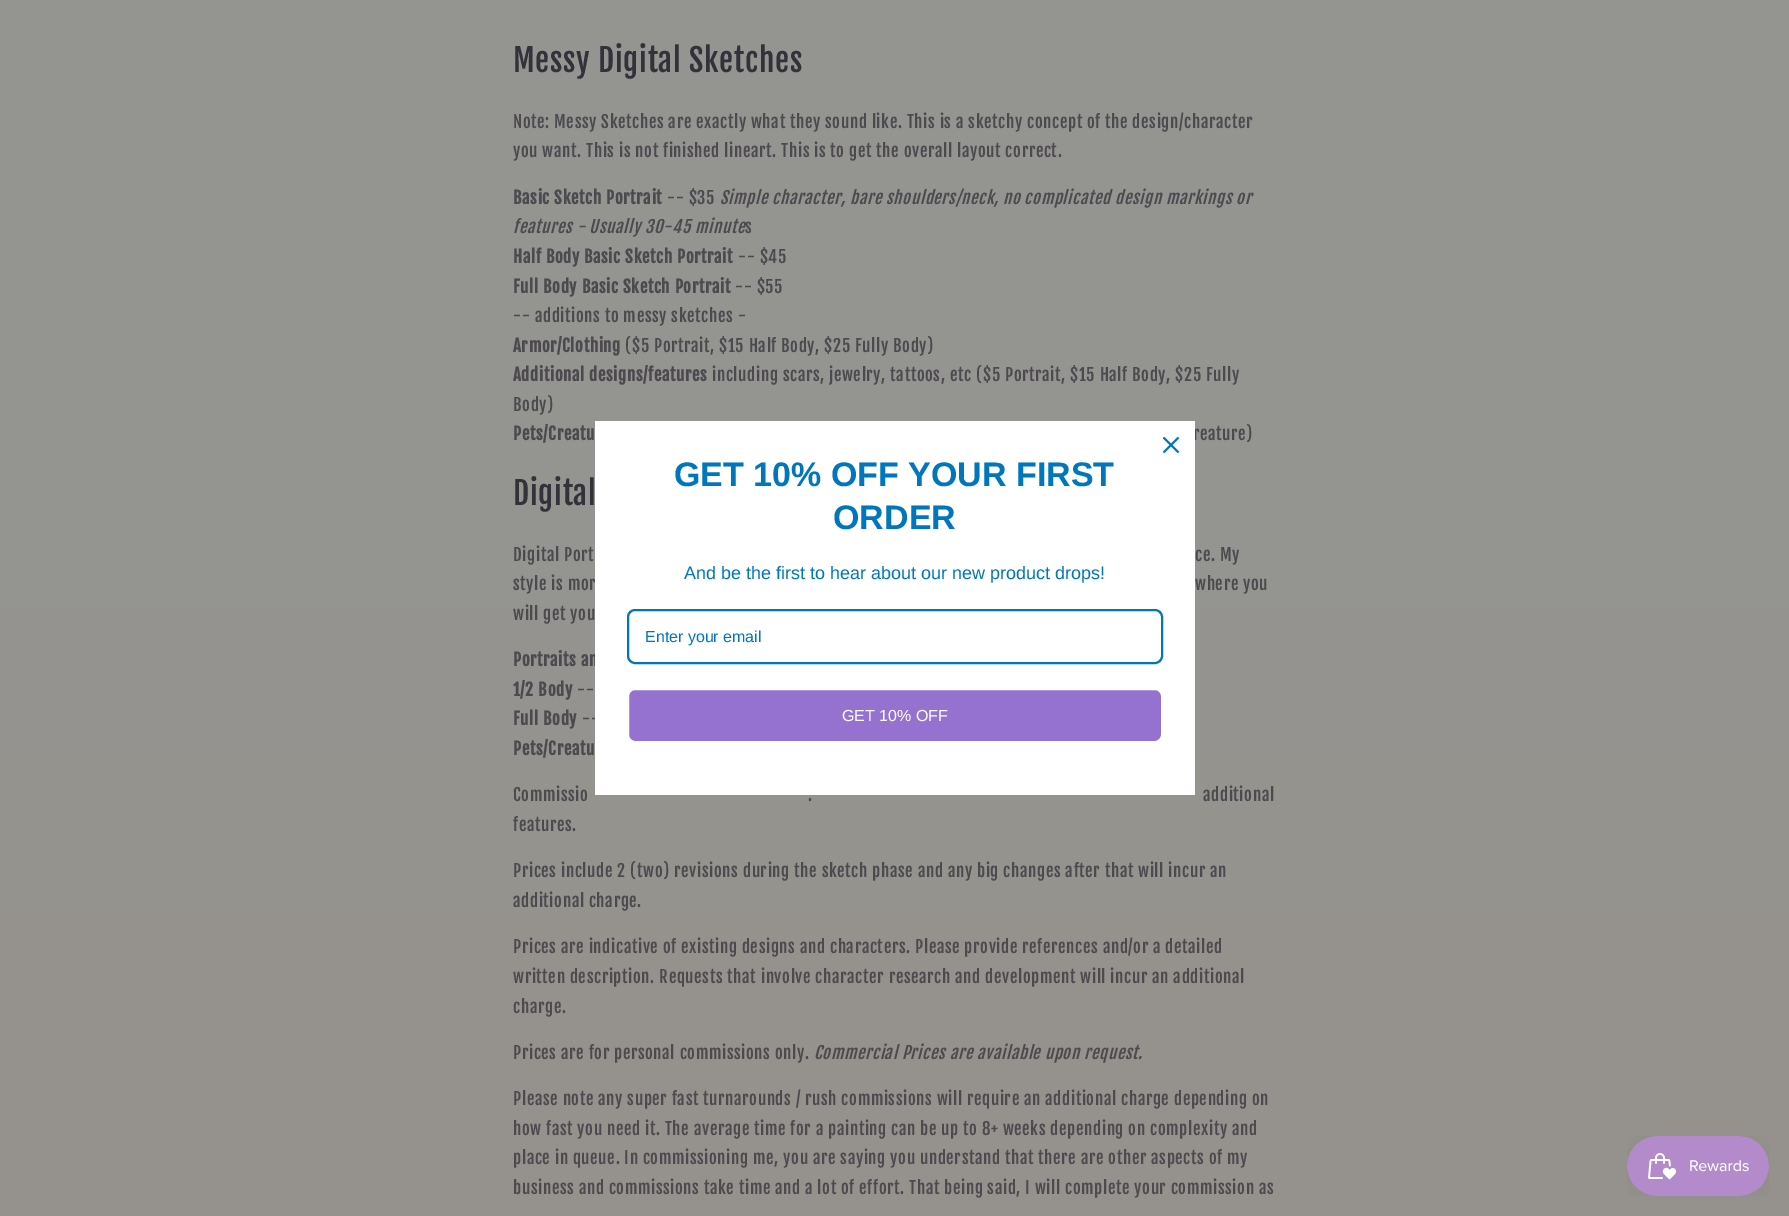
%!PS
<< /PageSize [1789 1216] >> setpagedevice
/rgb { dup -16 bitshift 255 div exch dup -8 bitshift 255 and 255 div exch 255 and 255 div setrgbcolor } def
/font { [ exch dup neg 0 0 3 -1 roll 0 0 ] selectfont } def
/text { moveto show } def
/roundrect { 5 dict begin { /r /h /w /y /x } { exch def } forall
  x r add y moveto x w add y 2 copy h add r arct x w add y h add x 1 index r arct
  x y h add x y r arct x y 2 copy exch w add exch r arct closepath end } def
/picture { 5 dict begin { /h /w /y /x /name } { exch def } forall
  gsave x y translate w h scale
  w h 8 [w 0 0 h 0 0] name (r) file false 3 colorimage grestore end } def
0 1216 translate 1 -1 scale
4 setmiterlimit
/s1 { /LiberationSans-Bold 34 font 16#0076BC rgb } def
/s2 { /LiberationSans-Regular 18 font 16#0076BC rgb } def
/s3 { /LiberationSans-Regular 16 font 16#0076BC rgb } def
/s4 { /LiberationSans-Regular 16 font 16#FFFFFF rgb } def
16#FFFFFF rgb
0 0 1789 1216 rectfill
gsave 0 0 moveto 1789 0 lineto 1789 1216 lineto 0 1216 lineto closepath clip newpath
<< /ShadingType 2 /ColorSpace /DeviceRGB /Coords [894 0 895 1216] /Extend [true true] /Function << /FunctionType 2 /Domain [0 1] /C0 [0.58 0.588 0.573] /C1 [0.584 0.573 0.553] /N 1 >> >> shfill grestore
/FjallaOne-Regular 31.25 font
16#333139 rgb
513 72 moveto 0.75 0 (Messy Digital Sketches) ashow
/FjallaOne-Regular 16.8 font
16#4C4A4F rgb
513 128 moveto 0.63 0 (Note: Messy Sketches are exactly what they sound like. This is a sketchy concept of the design/character) ashow
513 157 moveto 0.63 0 (you want. This is not finished lineart. This is to get the overall layout correct.) ashow
/FjallaOne-Bold 16.8 font
513 204 moveto 0.63 0 (Basic Sketch Portrait) ashow
/FjallaOne-Regular 16.8 font
667 204 moveto 0.63 0 (-- $35) ashow
/FjallaOne-Italic 16.8 font
720 204 moveto 0.63 0 (Simple character, bare shoulders/neck, no complicated design markings or) ashow
513 233 moveto 0.63 0 (features - Usually 30-45 minute) ashow
/FjallaOne-Regular 16.8 font
745 233 moveto 0.63 0 (s) ashow
/FjallaOne-Bold 16.8 font
513 263 moveto 0.63 0 (Half Body Basic Sketch Portrait) ashow
/FjallaOne-Regular 16.8 font
738 263 moveto 0.63 0 (-- $45) ashow
/FjallaOne-Bold 16.8 font
513 293 moveto 0.63 0 (Full Body Basic Sketch Portrait) ashow
/FjallaOne-Regular 16.8 font
735 293 moveto 0.63 0 (-- $55) ashow
513 322 moveto 0.63 0 (-- additions to messy sketches -) ashow
/FjallaOne-Bold 16.8 font
513 352 moveto 0.63 0 (Armor/Clothing) ashow
/FjallaOne-Regular 16.8 font
625 352 moveto 0.63 0 (\($5 Portrait, $15 Half Body, $25 Fully Body\)) ashow
/FjallaOne-Bold 16.8 font
513 381 moveto 0.63 0 (Additional designs/features) ashow
/FjallaOne-Regular 16.8 font
712 381 moveto 0.63 0 (including scars, jewelry, tattoos, etc \($5 Portrait, $15 Half Body, $25 Fully) ashow
513 411 moveto 0.63 0 (Body\)) ashow
/FjallaOne-Bold 16.8 font
513 440 moveto 0.63 0 (Pets/Creatu) ashow
/FjallaOne-Regular 16.8 font
1193 440 moveto 0.63 0 (reature\)) ashow
/FjallaOne-Regular 31.25 font
16#333139 rgb
513 505 moveto 0.75 0 (Digital) ashow
/FjallaOne-Regular 16.8 font
16#4C4A4F rgb
513 561 moveto 0.63 0 (Digital Port) ashow
1195 561 moveto 0.63 0 (ce. My) ashow
513 590 moveto 0.63 0 (style is mor) ashow
1195 590 moveto 0.63 0 (where you) ashow
513 620 moveto 0.63 0 (will get you) ashow
/FjallaOne-Bold 16.8 font
513 666 moveto 0.63 0 (Portraits an) ashow
513 696 moveto 0.63 0 (1/2 Body) ashow
/FjallaOne-Regular 16.8 font
577 696 moveto 0.63 0 (--) ashow
/FjallaOne-Bold 16.8 font
513 725 moveto 0.63 0 (Full Body) ashow
/FjallaOne-Regular 16.8 font
582 725 moveto 0.63 0 (--) ashow
/FjallaOne-Bold 16.8 font
513 755 moveto 0.63 0 (Pets/Creatu) ashow
/FjallaOne-Regular 16.8 font
513 801 moveto 0.63 0 (Commissio) ashow
808 801 moveto 0.63 0 (.) ashow
1203 801 moveto 0.63 0 (additional) ashow
513 831 moveto 0.63 0 (features.) ashow
513 877 moveto 0.63 0 (Prices include 2 \(two\) revisions during the sketch phase and any big changes after that will incur an) ashow
513 907 moveto 0.63 0 (additional charge.) ashow
513 953 moveto 0.63 0 (Prices are indicative of existing designs and characters. Please provide references and/or a detailed) ashow
513 983 moveto 0.63 0 (written description. Requests that involve character research and development will incur an additional) ashow
513 1013 moveto 0.63 0 (charge.) ashow
513 1059 moveto 0.63 0 (Prices are for personal commissions only.) ashow
/FjallaOne-Italic 16.8 font
814 1059 moveto 0.63 0 (Commercial Prices are available upon request.) ashow
/FjallaOne-Regular 16.8 font
513 1105 moveto 0.63 0 (Please note any super fast turnarounds / rush commissions will require an additional charge depending on) ashow
513 1135 moveto 0.63 0 (how fast you need it. The average time for a painting can be up to 8+ weeks depending on complexity and) ashow
513 1164 moveto 0.63 0 (place in queue. In commissioning me, you are saying you understand that there are other aspects of my) ashow
513 1194 moveto 0.63 0 (business and commissions take time and a lot of effort. That being said, I will complete your commission as) ashow
16#FFFFFF rgb
595 421 600 374 rectfill
(pic1.raw) 1163 437 16 16 picture
s1
(GET 10% OFF YOUR FIRST) 674 486 text
(ORDER) 833 529 text
s2
(And be the first to hear about our new product drops!) 684 579 text
2 setlinewidth
628 610 534 53 7 roundrect stroke
s3
(Enter your email) 645 642 text
16#9672D0 rgb
628 689 534 53 7 roundrect gsave fill grestore
16#FFFFFF rgb
stroke
(GET 10% OFF) 842 721 text
(pic2.raw) 1627 1136 142 60 picture
showpage
